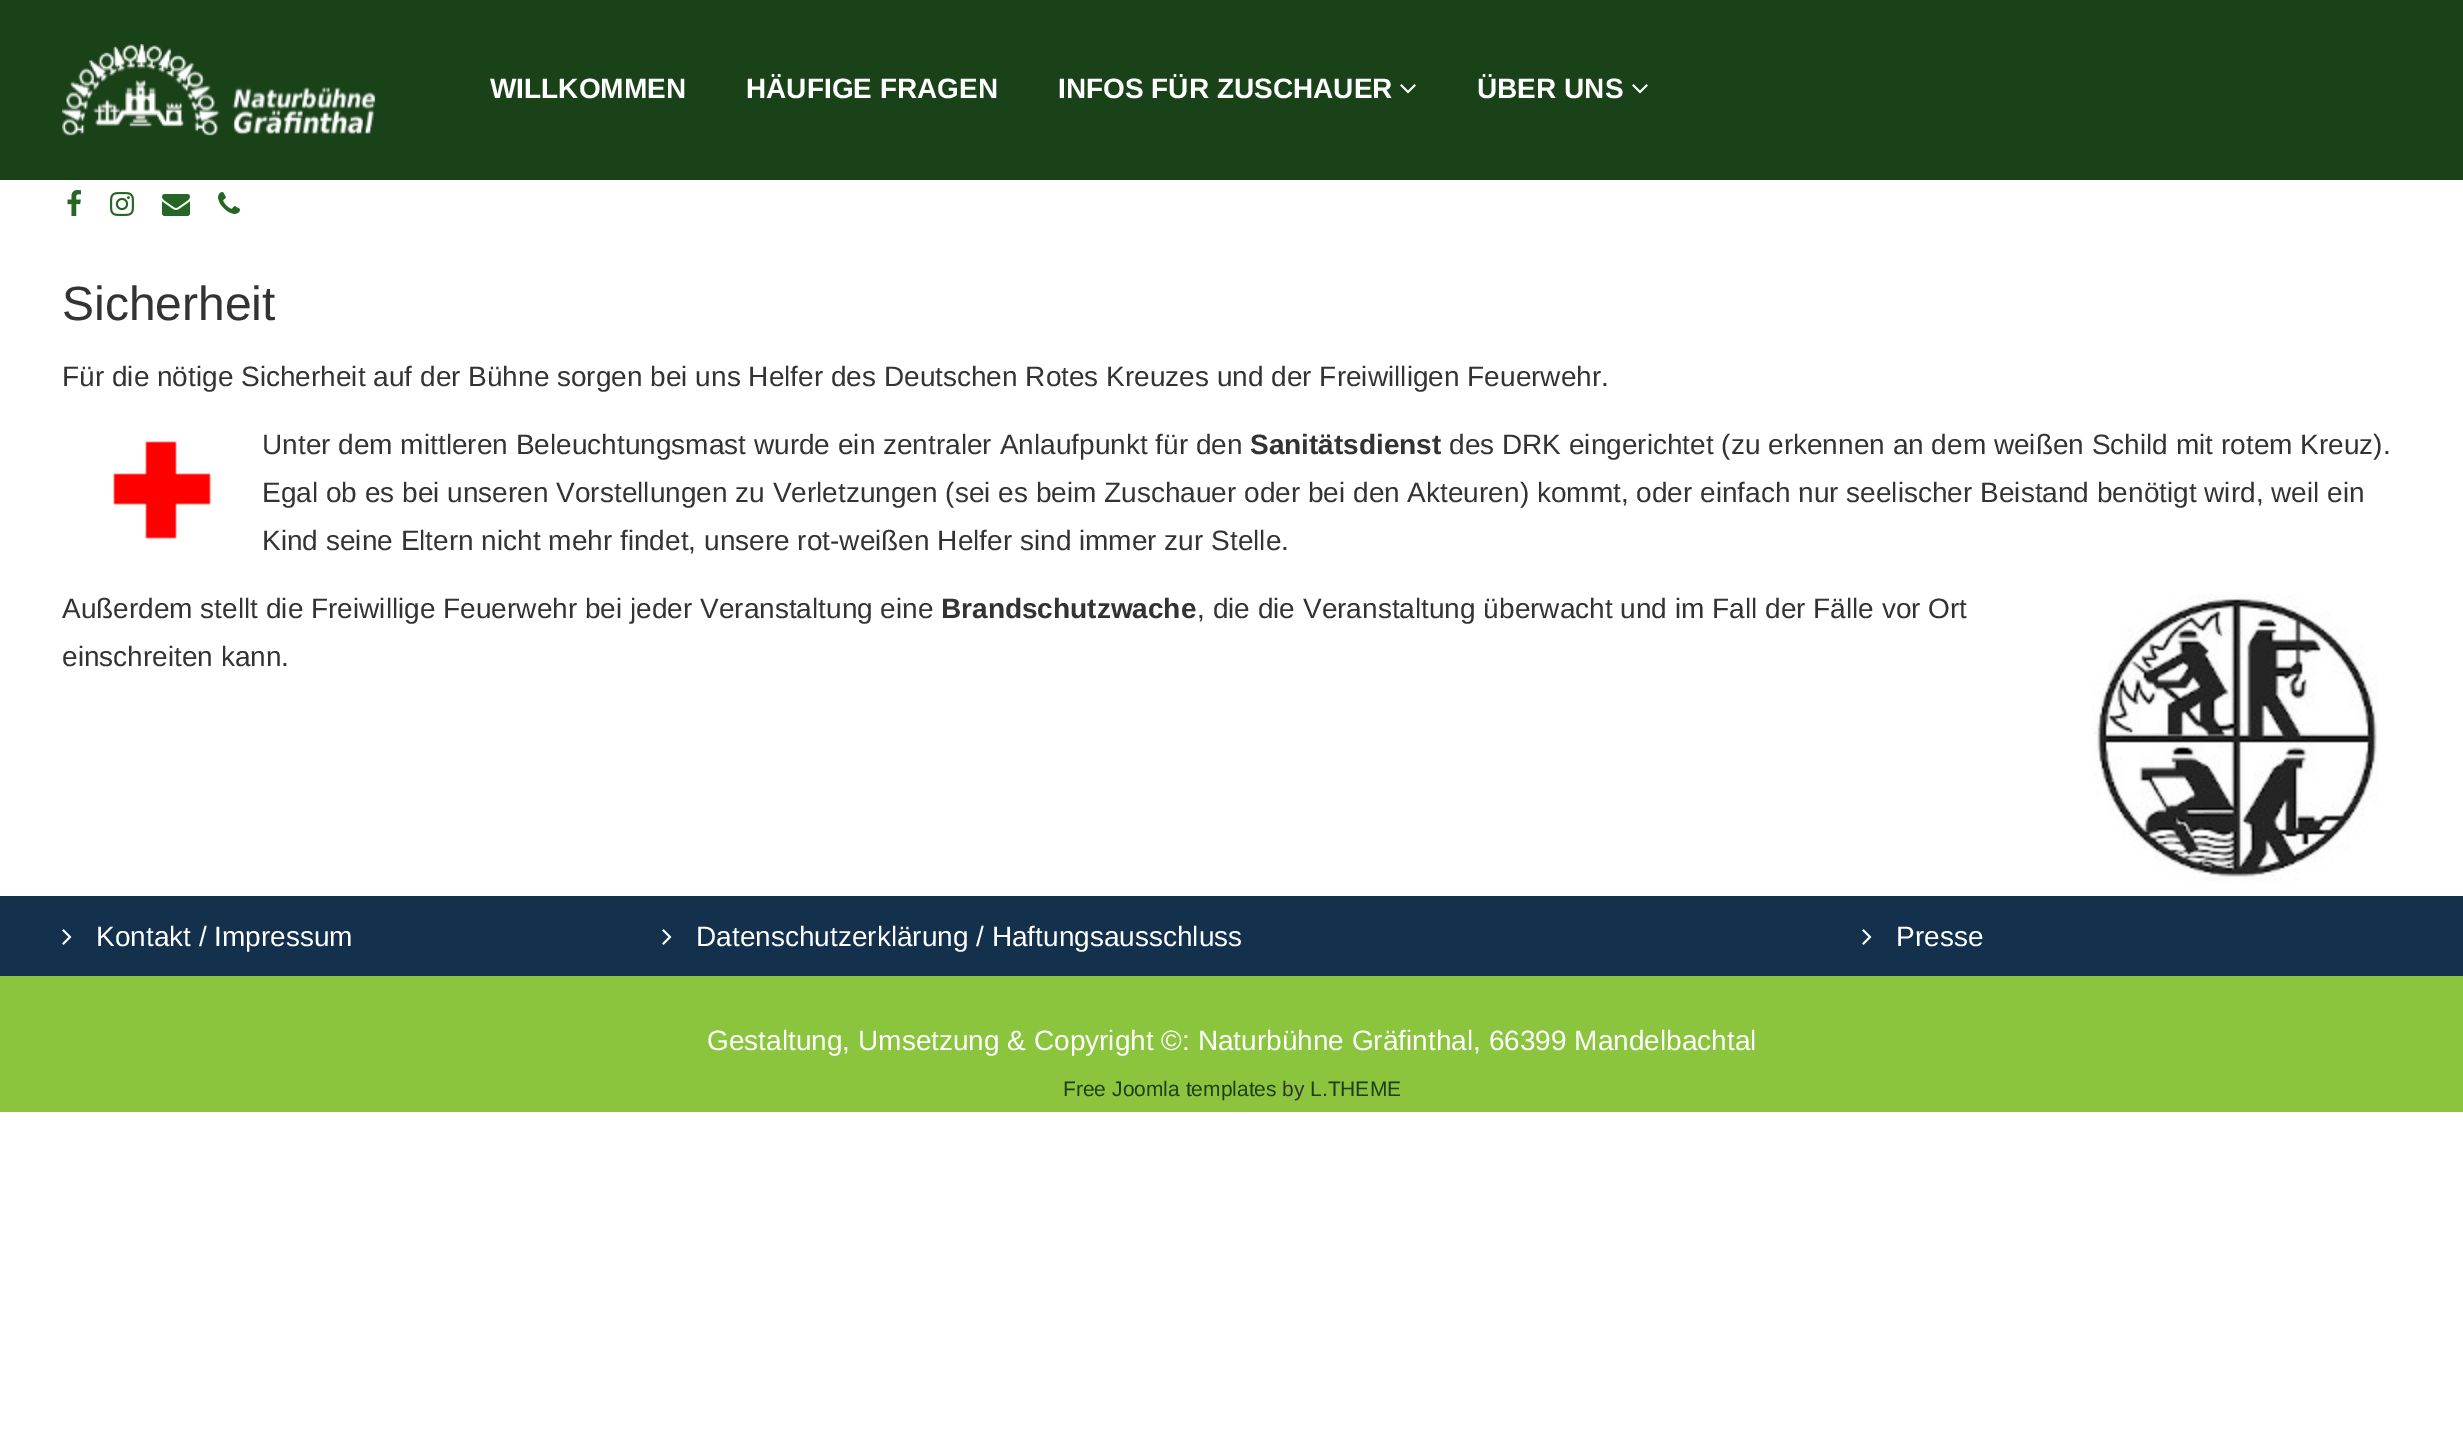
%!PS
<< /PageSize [2463 1450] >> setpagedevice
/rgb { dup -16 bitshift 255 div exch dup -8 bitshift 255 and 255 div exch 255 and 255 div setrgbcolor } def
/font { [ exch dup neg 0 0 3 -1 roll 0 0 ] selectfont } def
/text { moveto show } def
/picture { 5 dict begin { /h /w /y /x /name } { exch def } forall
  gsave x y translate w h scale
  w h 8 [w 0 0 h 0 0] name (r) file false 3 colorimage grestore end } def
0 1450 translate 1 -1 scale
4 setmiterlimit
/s1 { /LiberationSans-Bold 28 font 16#FFFFFF rgb } def
/s2 { /LiberationSans-Regular 48 font 16#333333 rgb } def
/s3 { /LiberationSans-Regular 28 font 16#333333 rgb } def
/s4 { /LiberationSans-Bold 28 font 16#333333 rgb } def
/s5 { /LiberationSans-Regular 28 font 16#FFFFFF rgb } def
/s6 { /LiberationSans-Regular 21 font 16#1A4219 rgb } def
/s7 { /LiberationSans-Regular 21 font 16#333333 rgb } def
16#FFFFFF rgb
0 0 2463 1450 rectfill
16#1A4219 rgb
0 0 2463 180 rectfill
(pic1.raw) 62 44 314 92 picture
(pic2.raw) 67 190 14 26 picture
(pic3.raw) 110 192 24 24 picture
(pic4.raw) 162 194 28 22 picture
(pic5.raw) 218 192 22 22 picture
s1
(WILLKOMMEN) 490 98 text
(HÄUFIGE FRAGEN) 746 98 text
(INFOS FÜR ZUSCHAUER) 1058 98 text
(pic6.raw) 1400 84 16 10 picture
(ÜBER UNS) 1477 98 text
(pic6.raw) 1632 84 16 10 picture
s2
(Sicherheit) 62 320 text
s3
(Für die nötige Sicherheit auf der Bühne sorgen bei uns Helfer des Deutschen Rotes Kreuzes und der Freiwilligen Feuerwehr.) 62 386 text
(pic7.raw) 113 441 98 98 picture
(Unter dem mittleren Beleuchtungsmast wurde ein zentraler Anlaufpunkt für den) 262 454 text
s4
(Sanitätsdienst) 1250 454 text
s3
(des DRK eingerichtet \(zu erkennen an dem weißen Schild mit rotem Kreuz\).) 1449 454 text
(Egal ob es bei unseren Vorstellungen zu Verletzungen \(sei es beim Zuschauer oder bei den Akteuren\) kommt, oder einfach nur seelischer Beistand benötigt wird, weil ein) 262 502 text
(Kind seine Eltern nicht mehr findet, unsere rot-weißen Helfer sind immer zur Stelle.) 262 550 text
(Außerdem stellt die Freiwillige Feuerwehr bei jeder Veranstaltung eine) 62 618 text
s4
(Brandschutzwache) 941 618 text
s3
(, die die Veranstaltung überwacht und im Fall der Fälle vor Ort) 1197 618 text
(pic8.raw) 2092 594 286 288 picture
(einschreiten kann.) 62 666 text
16#13314C rgb
0 896 2463 80 rectfill
(pic9.raw) 62 929 10 16 picture
s5
(Kontakt / Impressum) 96 946 text
(pic9.raw) 662 929 10 16 picture
(Datenschutzerklärung / Haftungsausschluss) 696 946 text
(pic9.raw) 1862 929 10 16 picture
(Presse) 1896 946 text
16#8BC53E rgb
0 976 2463 136 rectfill
s5
(Gestaltung, Umsetzung & Copyright ©: Naturbühne Gräfinthal, 66399 Mandelbachtal) 707 1050 text
s6
(Free Joomla templates) 1063 1096 text
s7
(by) 1282 1096 text
s6
(L.THEME) 1310 1096 text
showpage
